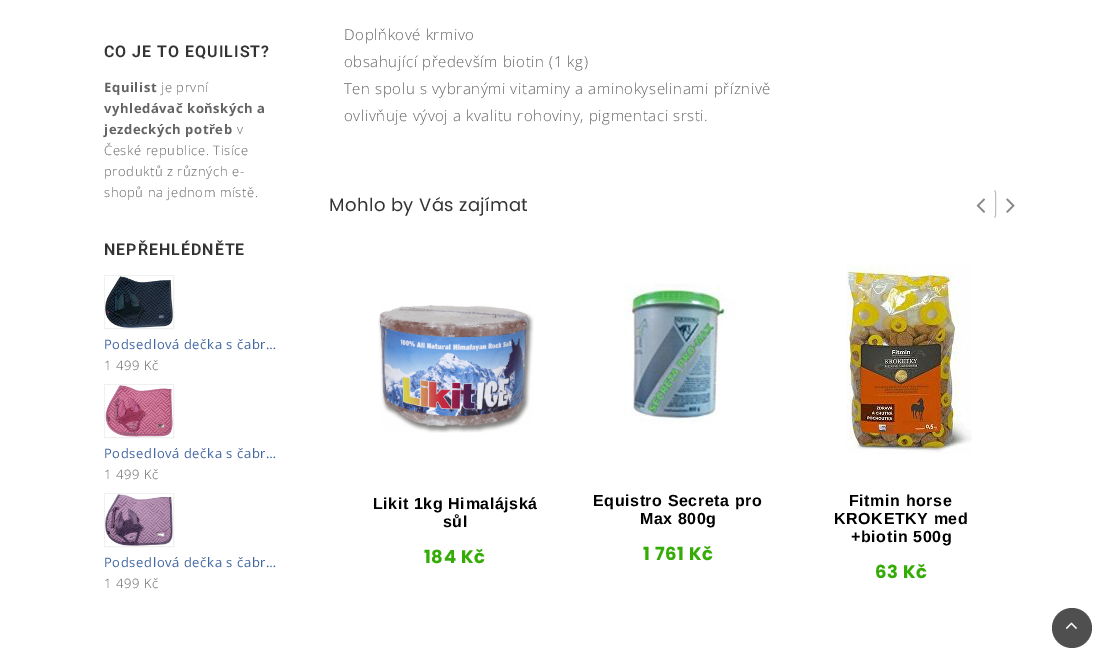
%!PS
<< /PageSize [1112 668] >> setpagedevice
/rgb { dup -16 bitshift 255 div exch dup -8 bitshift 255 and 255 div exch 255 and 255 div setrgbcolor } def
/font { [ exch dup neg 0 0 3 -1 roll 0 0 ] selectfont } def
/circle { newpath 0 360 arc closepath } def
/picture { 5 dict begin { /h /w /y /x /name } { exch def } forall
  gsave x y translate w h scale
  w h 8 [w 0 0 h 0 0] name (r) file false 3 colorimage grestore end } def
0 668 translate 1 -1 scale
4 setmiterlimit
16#FFFFFF rgb
0 0 1112 668 rectfill
/Roboto-SemiBold 16 font
16#333333 rgb
104 57 moveto 1 0 (CO JE TO EQUILIST?) ashow
/OpenSans-Bold 13 font
16#636363 rgb
104 92 moveto 0.6 0 (Equilist) ashow
/OpenSans-Light 13 font
161 92 moveto 0.6 0 (je první) ashow
/OpenSans-Bold 13 font
104 113 moveto 0.6 0 (vyhledávač koňských a) ashow
104 134 moveto 0.6 0 (jezdeckých potřeb) ashow
/OpenSans-Light 13 font
237 134 moveto 0.6 0 (v) ashow
104 155 moveto 0.6 0 (České republice. Tisíce) ashow
104 176 moveto 0.6 0 (produktů z různých e-) ashow
104 197 moveto 0.6 0 (shopů na jednom místě.) ashow
/Roboto-SemiBold 16 font
16#333333 rgb
104 255 moveto 1 0 (NEPŘEHLÉDNĚTE) ashow
16#F0F0F0 rgb
104.5 275.5 69 53 rectstroke
(pic1.raw) 105 276 68 52 picture
/OpenSans-Regular 13 font
16#4367A1 rgb
104 349 moveto 0.6 0 (Podsedlová dečka s čabr…) ashow
/OpenSans-Light 13 font
16#636363 rgb
104 370 moveto 0.6 0 (1 499 Kč) ashow
16#F0F0F0 rgb
104.5 384.5 69 53 rectstroke
(pic2.raw) 105 385 68 52 picture
/OpenSans-Regular 13 font
16#4367A1 rgb
104 458 moveto 0.6 0 (Podsedlová dečka s čabr…) ashow
/OpenSans-Light 13 font
16#636363 rgb
104 479 moveto 0.6 0 (1 499 Kč) ashow
16#F0F0F0 rgb
104.5 493.5 69 53 rectstroke
(pic3.raw) 105 494 68 52 picture
/OpenSans-Regular 13 font
16#4367A1 rgb
104 567 moveto 0.6 0 (Podsedlová dečka s čabr…) ashow
/OpenSans-Light 13 font
16#636363 rgb
104 588 moveto 0.6 0 (1 499 Kč) ashow
/OpenSans-Light 15 font
344 40 moveto 0.6 0 (Doplňkové krmivo) ashow
344 67 moveto 0.6 0 (obsahující především biotin \(1 kg\)) ashow
344 94 moveto 0.6 0 (Ten spolu s vybranými vitaminy a aminokyselinami příznivě) ashow
344 121 moveto 0.6 0 (ovlivňuje vývoj a kvalitu rohoviny, pigmentaci srsti.) ashow
/Poppins-Regular 18 font
16#333333 rgb
329 211 moveto 0.4 0 (Mohlo by Vás zajímat) ashow
16#BFBFBF rgb
994.5 190.5 moveto 995 191 995.5 192 995.5 193 curveto 995.5 215 lineto 995.5 216 995 217 994.5 217.5 curveto stroke
(pic4.raw) 976 198 9 15 picture
(pic5.raw) 1006 198 9 15 picture
(pic6.raw) 378 305 156 128 picture
/LiberationSans-Bold 16 font
16#000000 rgb
373 509 moveto 0.6 0 (Likit 1kg Himalájská) ashow
443 527 moveto 0.6 0 (sůl) ashow
/Poppins-Bold 18 font
16#35AB06 rgb
424 563 moveto 0.6 0 (184 Kč) ashow
(pic7.raw) 624 284 112 140 picture
/LiberationSans-Bold 16 font
16#000000 rgb
593 506 moveto 0.6 0 (Equistro Secreta pro) ashow
640 524 moveto 0.6 0 (Max 800g) ashow
/Poppins-Bold 18 font
16#35AB06 rgb
643 560 moveto 0.6 0 (1 761 Kč) ashow
(pic8.raw) 846 264 126 190 picture
/LiberationSans-Bold 16 font
16#000000 rgb
849 506 moveto 0.6 0 (Fitmin horse) ashow
834 524 moveto 0.6 0 (KROKETKY med) ashow
851 542 moveto 0.6 0 (+biotin 500g) ashow
/Poppins-Bold 18 font
16#35AB06 rgb
875 578 moveto 0.6 0 (63 Kč) ashow
16#4F4F4F rgb
1072 628 20 circle fill
(pic9.raw) 1065 622 12 7 picture
showpage
